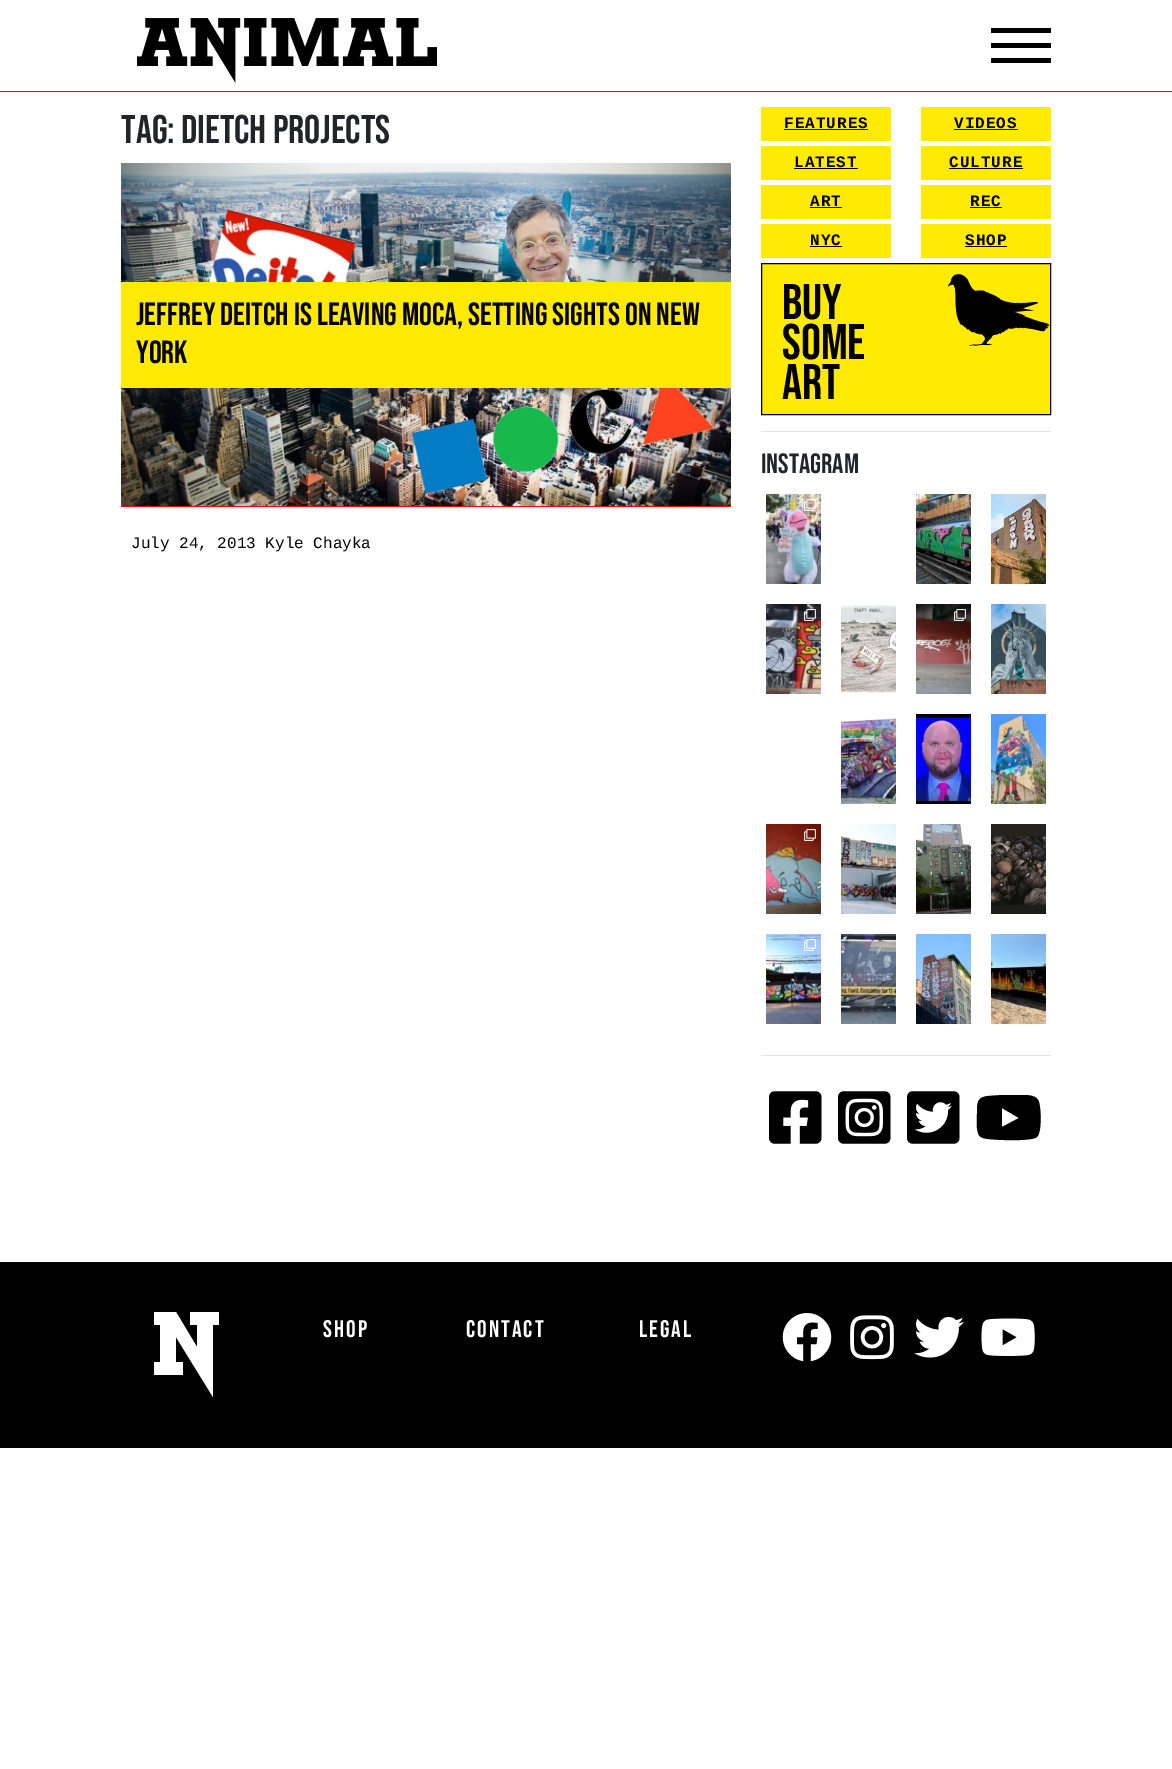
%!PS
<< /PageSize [1172 1769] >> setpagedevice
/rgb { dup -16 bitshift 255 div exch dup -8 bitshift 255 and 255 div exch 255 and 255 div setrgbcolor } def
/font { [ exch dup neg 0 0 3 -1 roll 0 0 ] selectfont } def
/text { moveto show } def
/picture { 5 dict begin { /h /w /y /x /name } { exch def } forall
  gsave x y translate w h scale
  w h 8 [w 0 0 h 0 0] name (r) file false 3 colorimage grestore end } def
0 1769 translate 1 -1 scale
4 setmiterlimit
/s1 { /BebasNeue-Regular 40 font 16#212529 rgb } def
/s2 { /BebasNeue-Regular 32 font 16#000000 rgb } def
/s3 { /LiberationMono-Regular 16 font 16#000000 rgb } def
/s4 { /BebasNeue-Regular 50 font 16#000000 rgb } def
/s5 { /BebasNeue-Regular 28 font 16#212529 rgb } def
16#FFFFFF rgb
0 0 1172 1769 rectfill
16#FF0000 rgb
0 91 1172 1 rectfill
(pic1.raw) 137 18 300 65 picture
16#000000 rgb
991 28 60 5 rectfill
991 43 60 5 rectfill
991 58 60 5 rectfill
s1
(Tag: Dietch Projects) 121 143 text
16#FF0000 rgb
121 506 610 1 rectfill
(pic2.raw) 121 163 610 343 picture
16#FFEA03 rgb
121 282 610 106 rectfill
s2
(Jeffrey Deitch Is Leaving MOCA, Setting Sights on New) 136 325 text
(York) 136 363 text
s3
(July 24, 2013 Kyle Chayka) 131 548 text
16#FFEA03 rgb
761 107 130 34 rectfill
/LiberationMono-Bold 16 font
16#000000 rgb
784 128 moveto 1 0 (FEATURES) ashow
784 129 84 1 rectfill
16#FFEA03 rgb
761 146 130 34 rectfill
16#000000 rgb
794 167 moveto 1 0 (LATEST) ashow
794 168 64 1 rectfill
16#FFEA03 rgb
761 185 130 34 rectfill
16#000000 rgb
810 206 moveto 1 0 (ART) ashow
810 207 32 1 rectfill
16#FFEA03 rgb
761 224 130 34 rectfill
16#000000 rgb
810 245 moveto 1 0 (NYC) ashow
810 246 32 1 rectfill
16#FFEA03 rgb
921 107 130 34 rectfill
16#000000 rgb
954 128 moveto 1 0 (VIDEOS) ashow
954 129 64 1 rectfill
16#FFEA03 rgb
921 146 130 34 rectfill
16#000000 rgb
949 167 moveto 1 0 (CULTURE) ashow
949 168 74 1 rectfill
16#FFEA03 rgb
921 185 130 34 rectfill
16#000000 rgb
970 206 moveto 1 0 (REC) ashow
970 207 32 1 rectfill
16#FFEA03 rgb
921 224 130 34 rectfill
16#000000 rgb
965 245 moveto 1 0 (SHOP) ashow
965 246 42 1 rectfill
16#FFEA03 rgb
761.5 263.5 moveto 1050.5 263.5 lineto 1050.5 414.5 lineto 761.5 414.5 lineto closepath gsave fill grestore
16#000000 rgb
stroke
s4
(Buy) 782 319 text
(Some) 782 359 text
(Art) 782 399 text
(pic3.raw) 948 274 102 72 picture
16#E6E6E6 rgb
761 431 290 1 rectfill
s5
(Instagram) 761 473 text
(pic4.raw) 766 494 55 90 picture
(pic5.raw) 804 499 12 12 picture
(pic6.raw) 916 494 55 90 picture
(pic7.raw) 991 494 55 90 picture
(pic8.raw) 766 604 55 90 picture
(pic9.raw) 804 609 12 12 picture
(pic10.raw) 841 605 55 88 picture
(pic11.raw) 916 604 55 90 picture
(pic12.raw) 954 609 12 12 picture
(pic13.raw) 991 604 55 90 picture
(pic14.raw) 841 717 55 87 picture
(pic15.raw) 916 714 55 90 picture
(pic16.raw) 991 714 55 90 picture
(pic17.raw) 766 824 55 90 picture
(pic18.raw) 804 829 12 12 picture
(pic19.raw) 841 824 55 90 picture
(pic20.raw) 916 824 55 90 picture
(pic21.raw) 991 824 55 90 picture
(pic22.raw) 766 934 55 90 picture
(pic23.raw) 804 939 12 12 picture
(pic24.raw) 841 934 55 90 picture
(pic25.raw) 916 934 55 90 picture
(pic26.raw) 991 934 55 90 picture
16#E6E6E6 rgb
761 1055 290 1 rectfill
(pic27.raw) 769 1091 53 53 picture
(pic28.raw) 838 1091 53 53 picture
(pic29.raw) 907 1091 53 53 picture
16#000000 rgb
1039 1102 moveto 1041 1109 1042 1132 1037 1137 curveto 1032 1142 987 1140 983 1138 curveto 980 1137 979 1136 978 1133 curveto 976 1127 977 1119 977 1113 curveto 977 1103 977 1097 988 1096 curveto 1002 1095 lineto 1022 1095 lineto 1028 1095 1037 1095 1039 1102 curveto closepath 1002 1127 moveto 1019 1118 lineto 1002 1108 lineto closepath fill
0 1262 1172 186 rectfill
16#FFFFFF rgb
154 1362 moveto 160 1362 lineto 160 1325 lineto 154 1325 lineto 154 1312 lineto 176 1312 lineto 197 1347 lineto 197 1325 lineto 190 1325 lineto 190 1312 lineto 219 1312 lineto 219 1325 lineto 213 1325 lineto 213 1397 lineto 176 1337 lineto 176 1362 lineto 183 1362 lineto 183 1375 lineto 154 1375 lineto closepath fill
/BebasNeue-Regular 24 font
323 1337 moveto 2 0 (Shop) ashow
466 1337 moveto 2 0 (Contact) ashow
639 1337 moveto 2 0 (Legal) ashow
(pic30.raw) 782 1313 50 49 picture
(pic31.raw) 850 1315 44 45 picture
(pic32.raw) 914 1316 50 42 picture
(pic33.raw) 981 1318 54 38 picture
showpage
